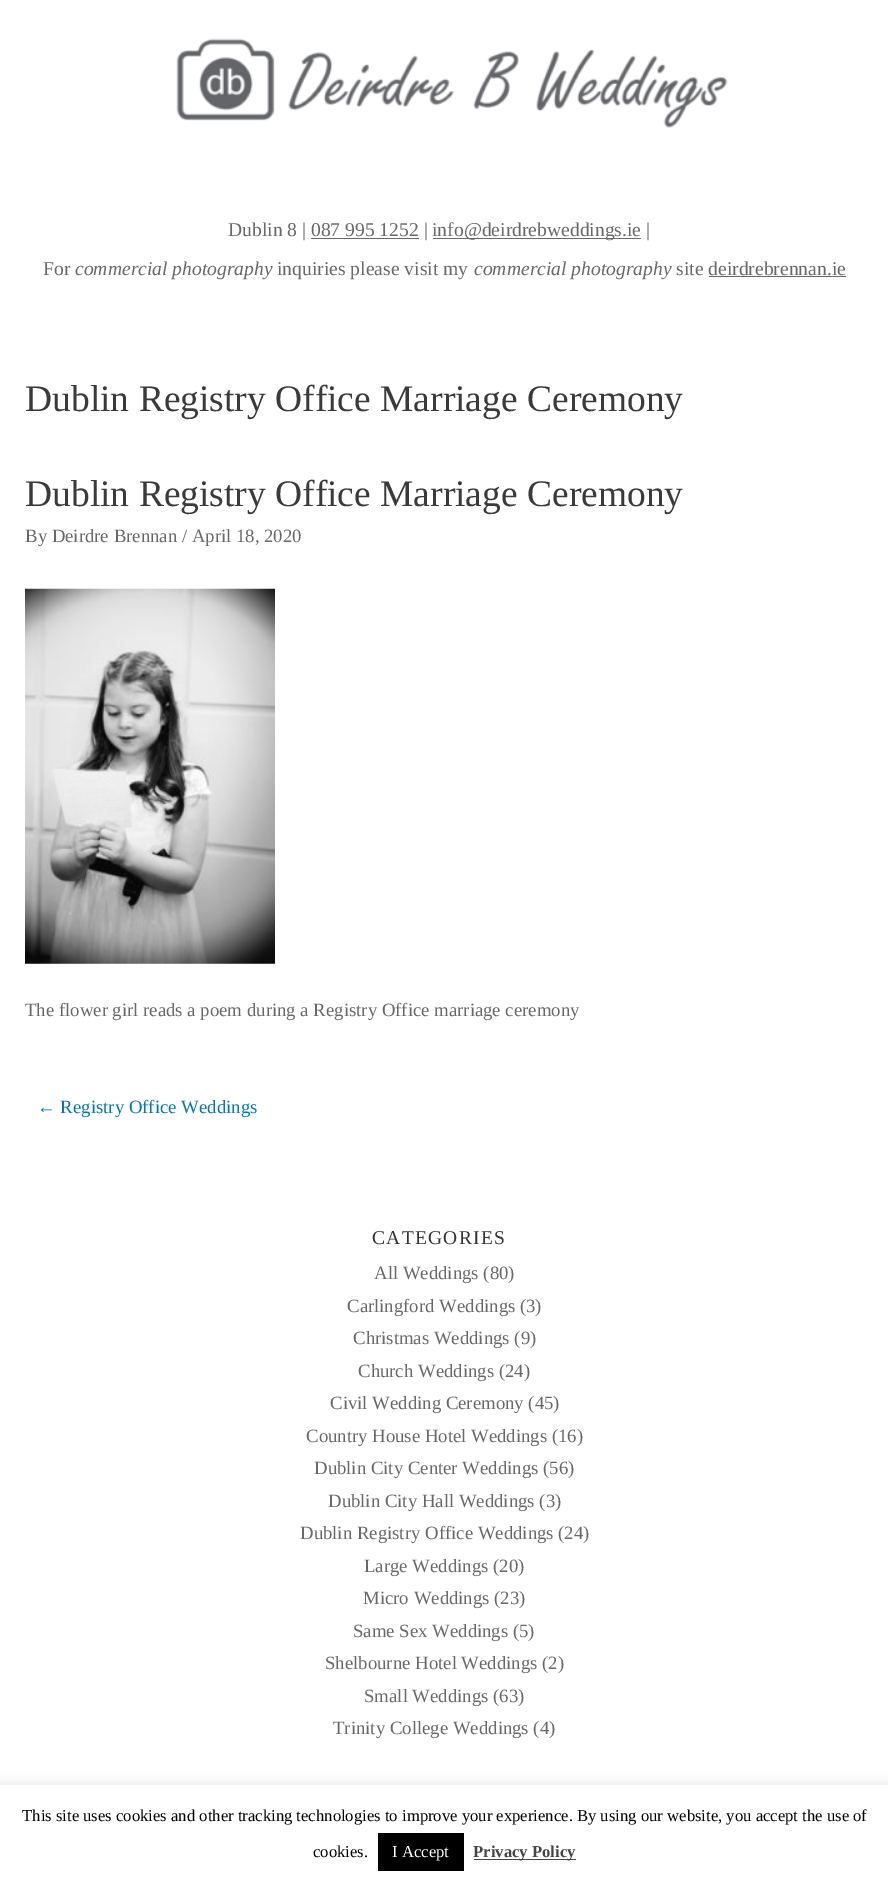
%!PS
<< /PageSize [888 1886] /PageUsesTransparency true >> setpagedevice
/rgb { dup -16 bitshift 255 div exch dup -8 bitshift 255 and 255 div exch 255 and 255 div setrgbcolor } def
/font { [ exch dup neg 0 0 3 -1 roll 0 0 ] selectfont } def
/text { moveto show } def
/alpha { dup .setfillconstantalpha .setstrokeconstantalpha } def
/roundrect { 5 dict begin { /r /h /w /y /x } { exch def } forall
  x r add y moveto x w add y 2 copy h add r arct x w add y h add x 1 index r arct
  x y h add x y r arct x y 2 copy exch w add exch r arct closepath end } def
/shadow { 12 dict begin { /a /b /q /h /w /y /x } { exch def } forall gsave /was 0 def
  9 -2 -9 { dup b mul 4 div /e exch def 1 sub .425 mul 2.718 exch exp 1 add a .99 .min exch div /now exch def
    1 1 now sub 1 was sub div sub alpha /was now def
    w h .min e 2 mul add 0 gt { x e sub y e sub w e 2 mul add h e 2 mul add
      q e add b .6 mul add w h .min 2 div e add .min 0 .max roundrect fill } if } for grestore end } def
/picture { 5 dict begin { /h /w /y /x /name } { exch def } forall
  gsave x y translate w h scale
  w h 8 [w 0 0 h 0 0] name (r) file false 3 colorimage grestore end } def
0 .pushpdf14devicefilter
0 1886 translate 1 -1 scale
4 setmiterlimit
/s1 { /LiberationSerif-Regular 19.6 font 16#686868 rgb } def
/s2 { /LiberationSerif-Italic 19.6 font 16#686868 rgb } def
/s3 { /LiberationSerif-Regular 37.5 font 16#3A3A3A rgb } def
/s4 { /LiberationSerif-Regular 18.75 font 16#686868 rgb } def
/s5 { /LiberationSerif-Regular 18.75 font 16#0274BE rgb } def
/s6 { /LiberationSerif-Regular 16.67 font 16#000000 rgb } def
/s7 { /LiberationSerif-Regular 16.67 font 16#FFFFFF rgb } def
/s8 { /LiberationSerif-Bold 16.67 font 16#444444 rgb } def
16#FFFFFF rgb
0 0 888 1886 rectfill
(pic1.raw) 176 38 552 90 picture
s1
(Dublin 8 | 087 995 1252 |) 228 236 text
433 238 208 1 rectfill
(info@deirdrebweddings.ie |) 432 236 text
311 238 108 1 rectfill
(For) 43 275 text
s2
(commercial photography) 75 275 text
s1
(inquiries please visit my) 277 275 text
s2
(commercial photography) 474 275 text
s1
(site deirdrebrennan.ie) 676 275 text
709 276 137 1 rectfill
s3
(Dublin Registry Office Marriage Ceremony) 25 411 text
(Dublin Registry Office Marriage Ceremony) 25 506 text
s4
(By Deirdre Brennan / April 18, 2020) 25 542 text
(pic2.raw) 25 588 250 376 picture
(The flower girl reads a poem during a Registry Office marriage ceremony) 25 1016 text
s5
(← Registry Office Weddings) 37 1113 text
/LiberationSerif-Regular 19.5 font
16#333333 rgb
372 1244 moveto 1.25 0 (CATEGORIES) ashow
s4
(All Weddings \(80\)) 374 1279 text
(Carlingford Weddings \(3\)) 347 1312 text
(Christmas Weddings \(9\)) 353 1344 text
(Church Weddings \(24\)) 358 1377 text
(Civil Wedding Ceremony \(45\)) 330 1409 text
(Country House Hotel Weddings \(16\)) 306 1442 text
(Dublin City Center Weddings \(56\)) 314 1474 text
(Dublin City Hall Weddings \(3\)) 328 1507 text
(Dublin Registry Office Weddings \(24\)) 300 1539 text
(Large Weddings \(20\)) 364 1572 text
(Micro Weddings \(23\)) 363 1604 text
(Same Sex Weddings \(5\)) 353 1637 text
(Shelbourne Hotel Weddings \(2\)) 325 1669 text
(Small Weddings \(63\)) 364 1702 text
(Trinity College Weddings \(4\)) 333 1734 text
16#ACABAB rgb
0 1784 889 101 0 6 0.3 shadow
16#FFFFFF rgb
0 1785 888 101 rectfill
s6
(This site uses cookies and other tracking technologies to improve your experience. By using our website, you accept the use of) 22 1821 text
(cookies.) 313 1857 text
378 1833 86 38 rectfill
s7
(I Accept) 392 1857 text
16#444444 rgb
474 1859 102 1 rectfill
s8
(Privacy Policy) 473 1857 text
.poppdf14devicefilter showpage
